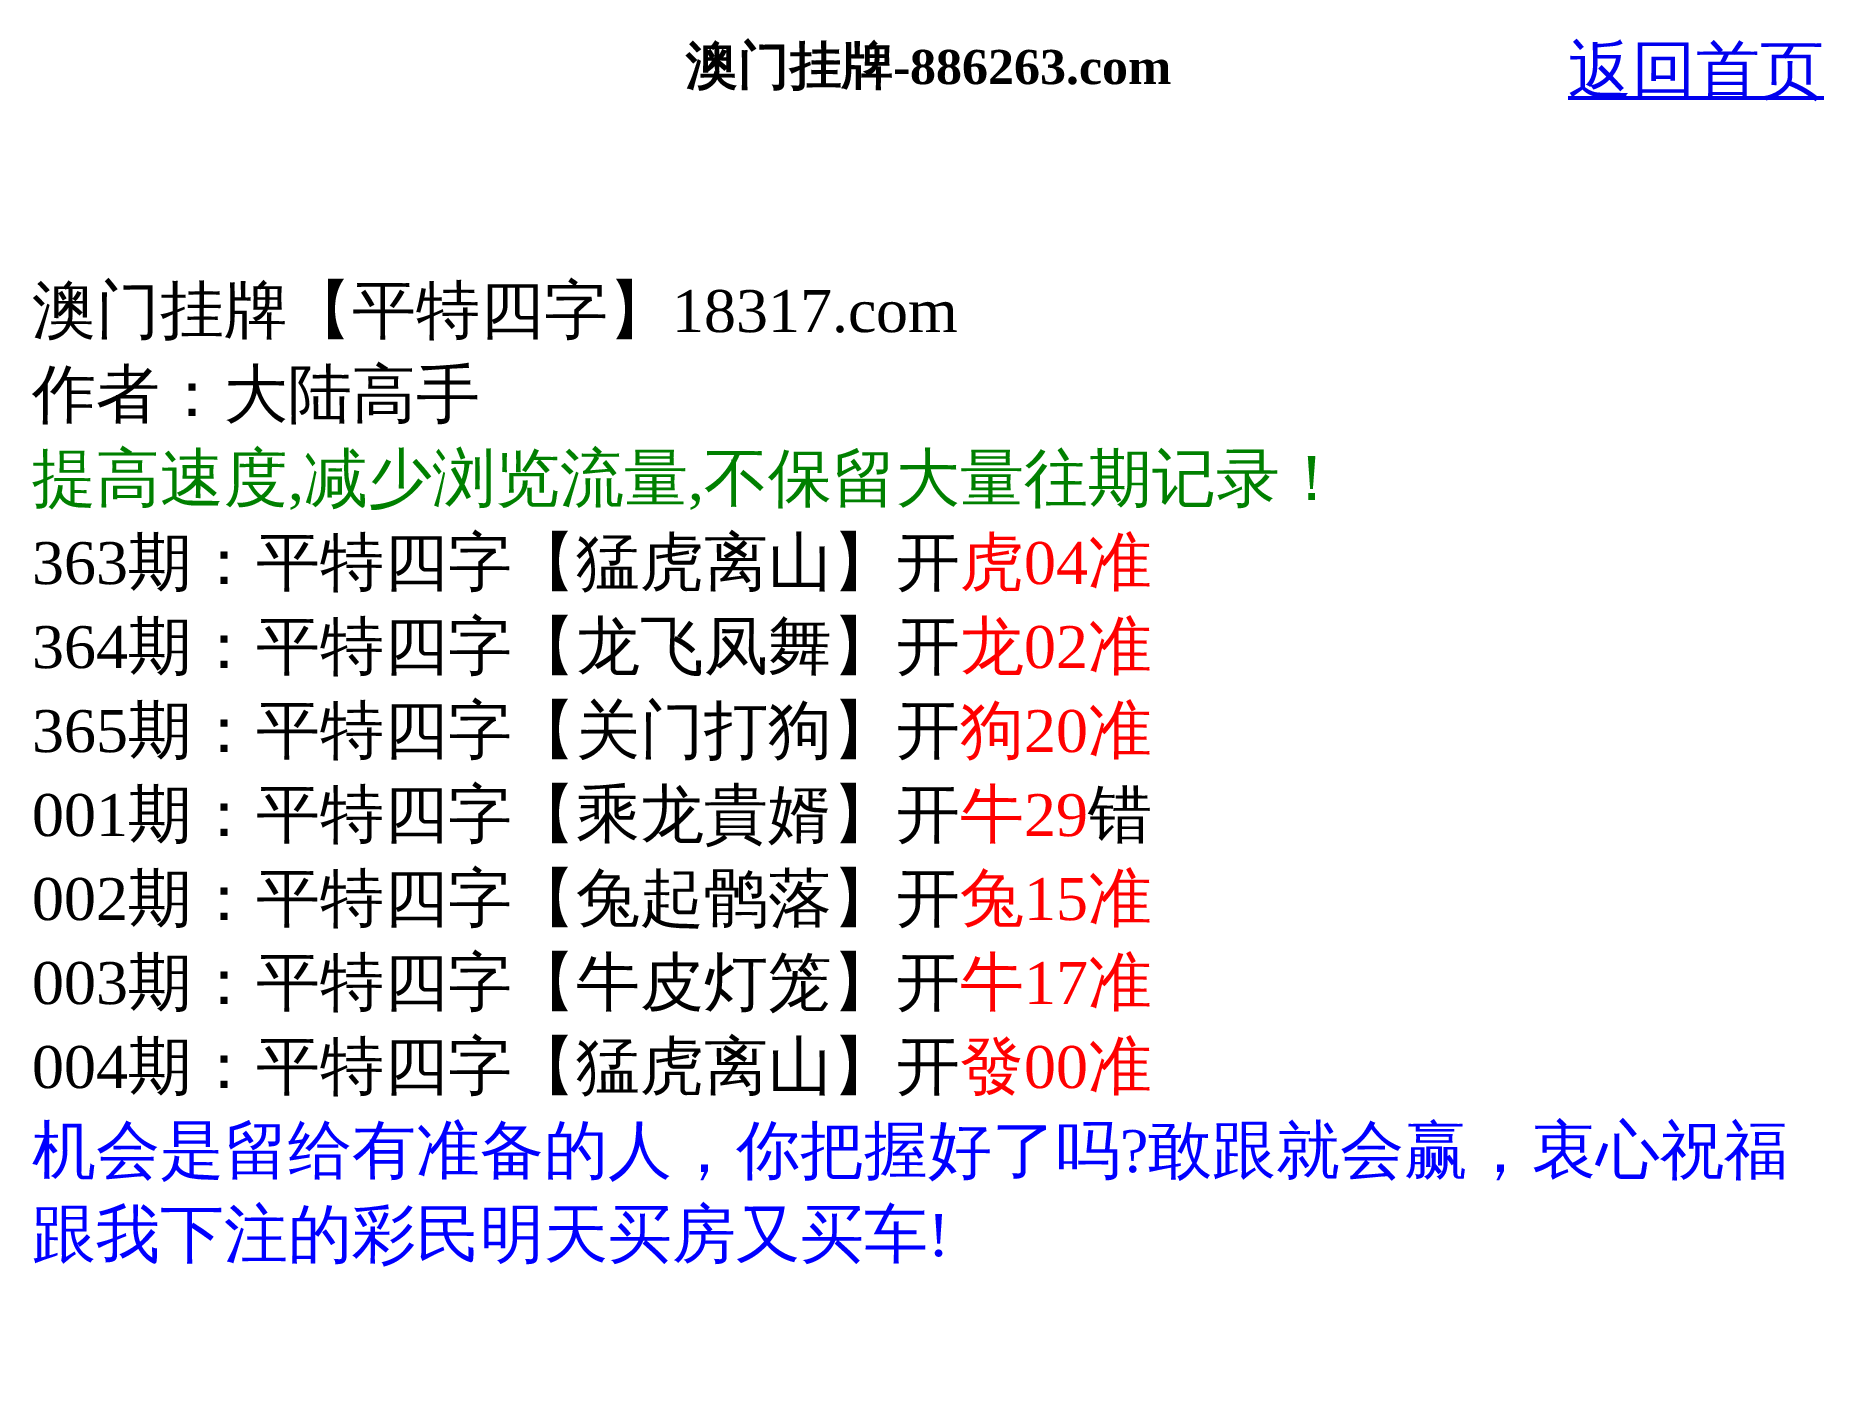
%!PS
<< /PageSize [1856 1419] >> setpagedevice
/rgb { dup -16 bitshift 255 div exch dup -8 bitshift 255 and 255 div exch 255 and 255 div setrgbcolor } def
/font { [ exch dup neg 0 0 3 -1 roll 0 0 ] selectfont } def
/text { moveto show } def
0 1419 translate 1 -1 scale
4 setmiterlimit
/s1 { /WenQuanYiZenHei-Bold 52 font 16#000000 rgb } def
/s2 { /LiberationSerif-Bold 52 font 16#000000 rgb } def
/s3 { /WenQuanYiZenHei-Medium 64 font 16#0000EE rgb } def
/s4 { /WenQuanYiZenHei-Medium 64 font 16#000000 rgb } def
/s5 { /LiberationSerif-Regular 64 font 16#000000 rgb } def
/s6 { /WenQuanYiZenHei-Medium 64 font 16#008000 rgb } def
/s7 { /LiberationSerif-Regular 64 font 16#008000 rgb } def
/s8 { /WenQuanYiZenHei-Medium 64 font 16#FF0000 rgb } def
/s9 { /LiberationSerif-Regular 64 font 16#FF0000 rgb } def
/s10 { /WenQuanYiZenHei-Medium 64 font 16#0000FF rgb } def
/s11 { /LiberationSerif-Regular 64 font 16#0000FF rgb } def
16#FFFFFF rgb
0 0 1856 1419 rectfill
s1
(澳门挂牌) 685 84 text
s2
(-886263.com) 893 84 text
16#0000EE rgb
1568 96 256 4 rectfill
s3
(返回首页) 1568 92 text
s4
(澳门挂牌【平特四字】) 32 332 text
s5
(18317.com) 672 332 text
s4
(作者：大陆高手) 32 416 text
s6
(提高速度) 32 500 text
s7
(,) 288 500 text
s6
(减少浏览流量) 304 500 text
s7
(,) 688 500 text
s6
(不保留大量往期记录！) 704 500 text
s5
(363) 32 584 text
s4
(期：平特四字【猛虎离山】开) 128 584 text
s8
(虎) 960 584 text
s9
(04) 1024 584 text
s8
(准) 1088 584 text
s5
(364) 32 668 text
s4
(期：平特四字【龙飞凤舞】开) 128 668 text
s8
(龙) 960 668 text
s9
(02) 1024 668 text
s8
(准) 1088 668 text
s5
(365) 32 752 text
s4
(期：平特四字【关门打狗】开) 128 752 text
s8
(狗) 960 752 text
s9
(20) 1024 752 text
s8
(准) 1088 752 text
s5
(001) 32 836 text
s4
(期：平特四字【乘龙貴婿】开) 128 836 text
s8
(牛) 960 836 text
s9
(29) 1024 836 text
s4
(错) 1088 836 text
s5
(002) 32 920 text
s4
(期：平特四字【兔起鹘落】开) 128 920 text
s8
(兔) 960 920 text
s9
(15) 1024 920 text
s8
(准) 1088 920 text
s5
(003) 32 1004 text
s4
(期：平特四字【牛皮灯笼】开) 128 1004 text
s8
(牛) 960 1004 text
s9
(17) 1024 1004 text
s8
(准) 1088 1004 text
s5
(004) 32 1088 text
s4
(期：平特四字【猛虎离山】开) 128 1088 text
s8
(發) 960 1088 text
s9
(00) 1024 1088 text
s8
(准) 1088 1088 text
s10
(机会是留给有准备的人，你把握好了吗) 32 1172 text
s11
(?) 1120 1172 text
s10
(敢跟就会赢，衷心祝福) 1148 1172 text
(跟我下注的彩民明天买房又买车) 32 1256 text
s11
(!) 928 1256 text
showpage
